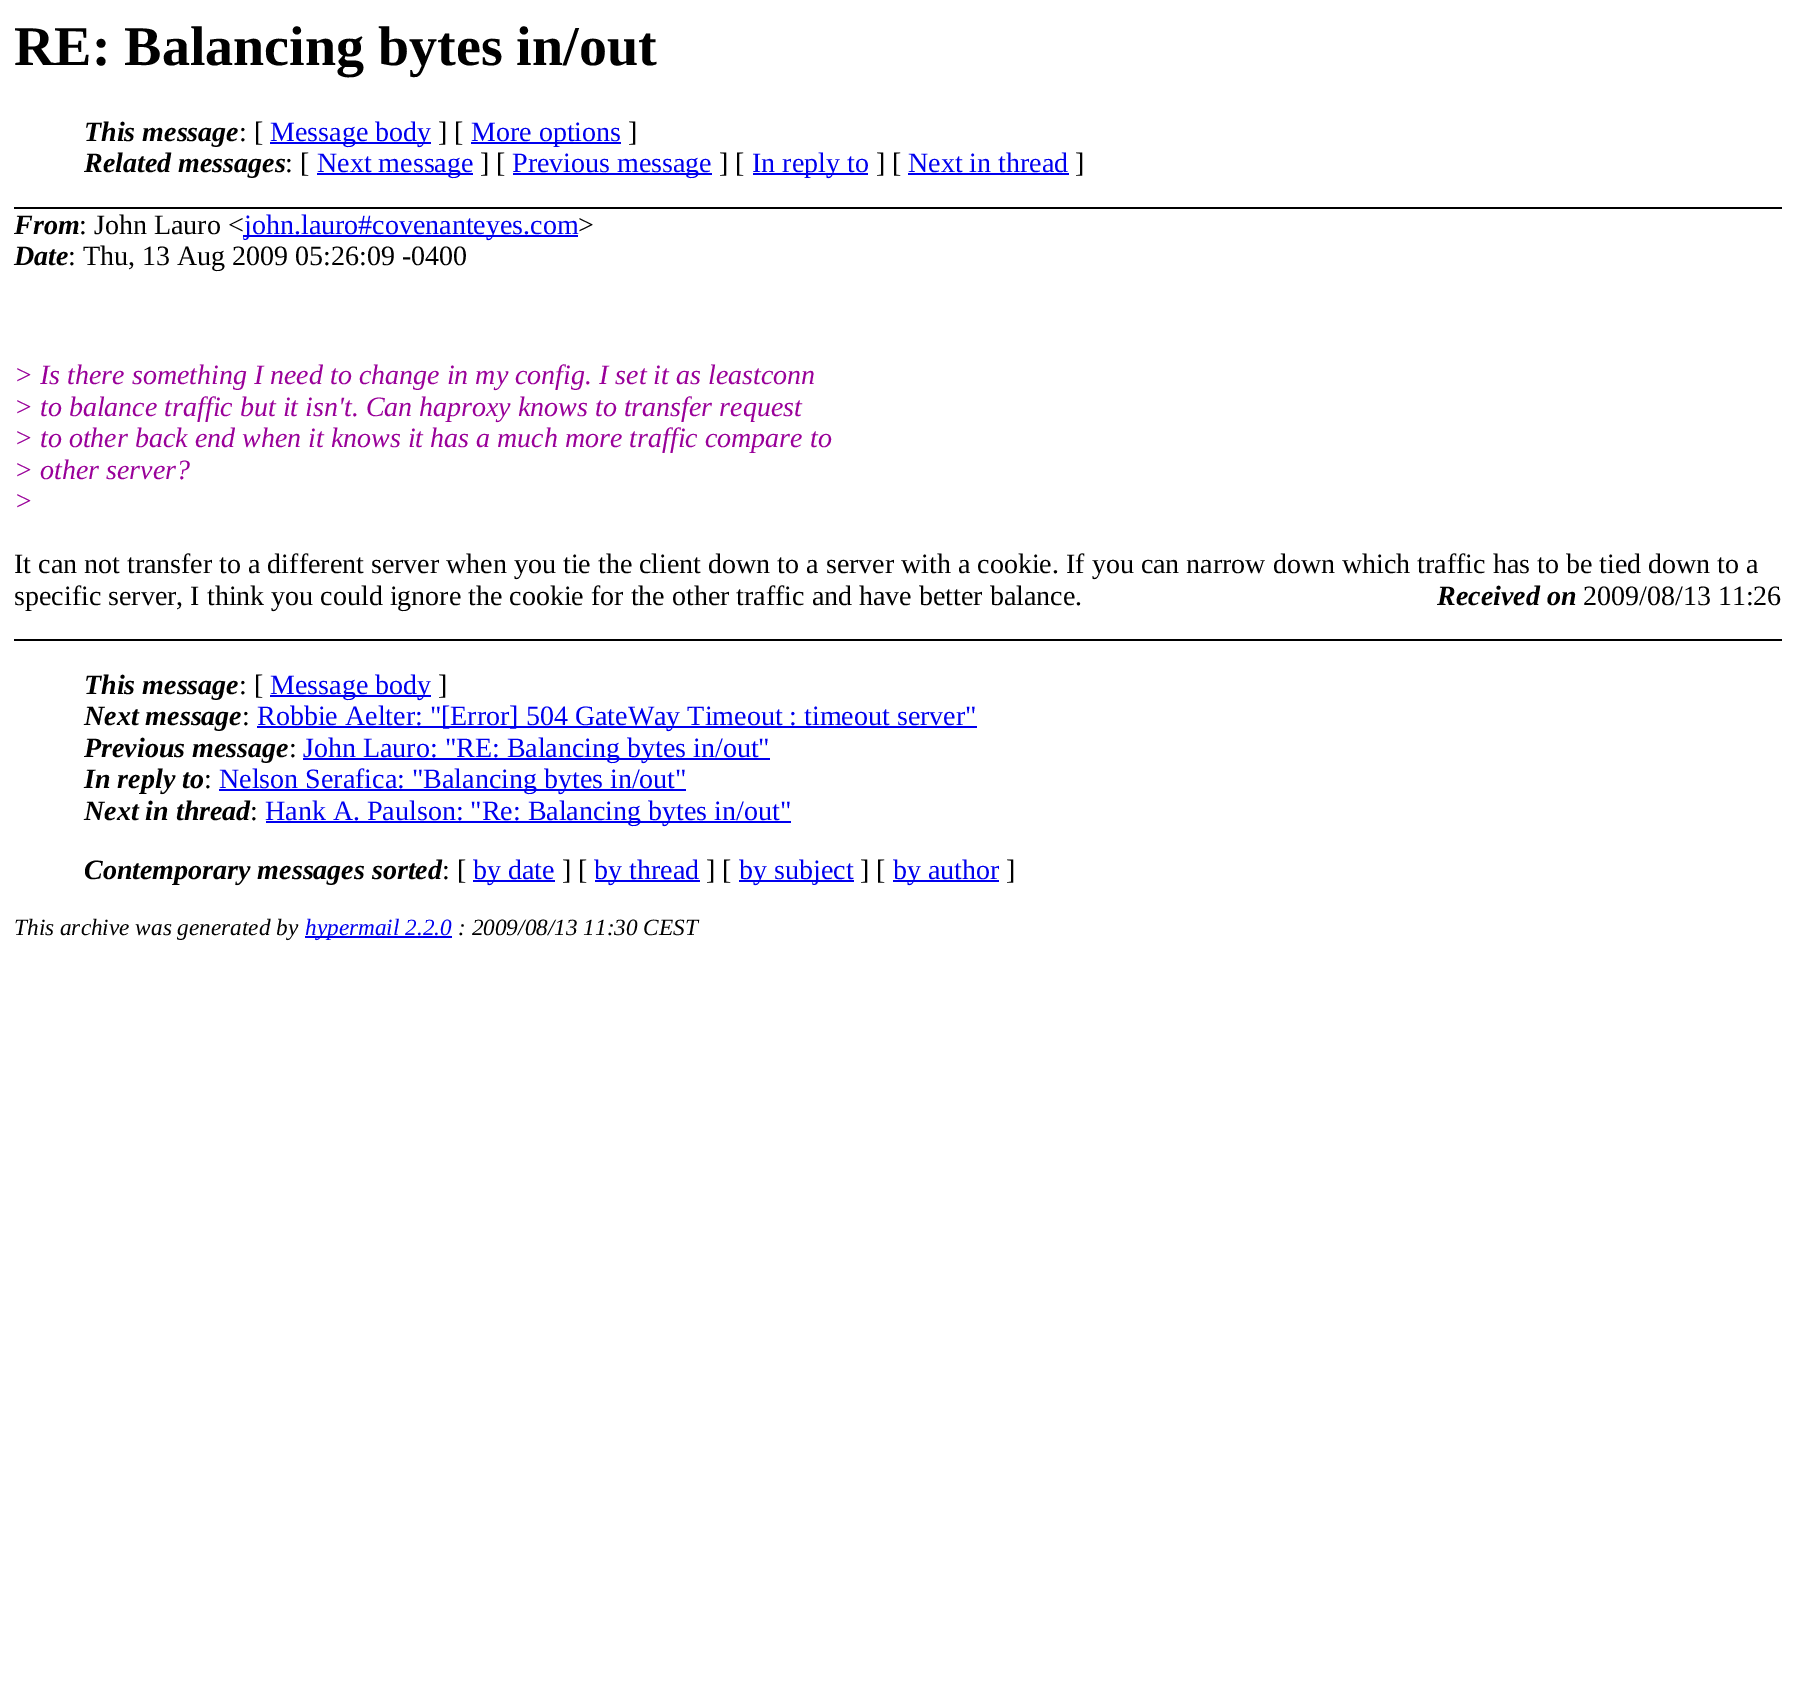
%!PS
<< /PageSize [1795 1687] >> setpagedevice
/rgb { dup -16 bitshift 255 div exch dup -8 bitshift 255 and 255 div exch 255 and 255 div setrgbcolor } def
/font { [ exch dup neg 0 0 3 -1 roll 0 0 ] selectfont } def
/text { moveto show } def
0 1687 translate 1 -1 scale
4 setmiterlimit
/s1 { /LiberationSerif-Bold 56 font 16#000000 rgb } def
/s2 { /LiberationSerif-BoldItalic 28 font 16#000000 rgb } def
/s3 { /LiberationSerif-Regular 28 font 16#000000 rgb } def
/s4 { /LiberationSerif-Regular 28 font 16#0000EE rgb } def
/s5 { /LiberationSerif-Italic 28 font 16#990099 rgb } def
/s6 { /LiberationSerif-Italic 23.25 font 16#000000 rgb } def
/s7 { /LiberationSerif-Italic 23.25 font 16#0000EE rgb } def
16#FFFFFF rgb
0 0 1795 1687 rectfill
16#000000 rgb
14 207 1768 2 rectfill
s1
(RE: Balancing bytes in/out) 14 65 text
s2
(This message) 84 141 text
s3
(: [) 239 141 text
16#0000EE rgb
270 142 161 2 rectfill
(Message body) 270 141 text
s3
(] [) 438 141 text
16#0000EE rgb
471 142 150 2 rectfill
(More options) 471 141 text
s3
(]) 628 141 text
s2
(Related messages) 84 172 text
s3
(: [) 285 172 text
16#0000EE rgb
317 173 156 2 rectfill
(Next message) 317 172 text
s3
(] [) 480 172 text
16#0000EE rgb
513 173 199 2 rectfill
(Previous message) 512 172 text
s3
(] [) 719 172 text
16#0000EE rgb
753 173 115 2 rectfill
(In reply to) 752 172 text
s3
(] [) 876 172 text
s4
(Next in thread) 908 172 text
908 173 161 2 rectfill
s3
(]) 1075 172 text
s2
(From) 14 234 text
s3
(: John Lauro <) 79 234 text
16#0000EE rgb
243 235 335 2 rectfill
(john.lauro#covenanteyes.com) 244 234 text
s3
(>) 578 234 text
s2
(Date) 14 265 text
s3
(: Thu, 13 Aug 2009 05:26:09 -0400) 68 265 text
s5
(> Is there something I need to change in my config. I set it as leastconn) 14 384 text
(> to balance traffic but it isn't. Can haproxy knows to transfer request) 14 416 text
(> to other back end when it knows it has a much more traffic compare to) 14 447 text
(> other server?) 14 479 text
(>) 14 510 text
s3
(It can not transfer to a different server when you tie the client down to a server with a cookie. If you can narrow down which traffic has to be tied down to a) 14 573 text
(specific server, I think you could ignore the cookie for the other traffic and have better balance.) 14 605 text
s2
(Received on) 1437 605 text
s3
(2009/08/13 11:26) 1583 605 text
14 639 1768 2 rectfill
s2
(This message) 84 694 text
s3
(: [) 239 694 text
16#0000EE rgb
270 695 161 2 rectfill
(Message body) 270 694 text
s3
(]) 438 694 text
s2
(Next message) 84 725 text
s3
(:) 242 725 text
16#0000EE rgb
257 726 720 2 rectfill
(Robbie Aelter: "[Error] 504 GateWay Timeout : timeout server") 257 725 text
s2
(Previous message) 84 757 text
s3
(:) 289 757 text
16#0000EE rgb
303 758 467 2 rectfill
(John Lauro: "RE: Balancing bytes in/out") 303 757 text
s2
(In reply to) 84 788 text
s3
(:) 204 788 text
16#0000EE rgb
219 789 467 2 rectfill
(Nelson Serafica: "Balancing bytes in/out") 219 788 text
s2
(Next in thread) 84 820 text
s3
(:) 250 820 text
16#0000EE rgb
266 821 525 2 rectfill
(Hank A. Paulson: "Re: Balancing bytes in/out") 265 820 text
s2
(Contemporary messages sorted) 84 879 text
s3
(: [) 442 879 text
16#0000EE rgb
473 880 82 2 rectfill
(by date) 473 879 text
s3
(] [) 562 879 text
16#0000EE rgb
595 880 105 2 rectfill
(by thread) 594 879 text
s3
(] [) 706 879 text
16#0000EE rgb
739 880 115 2 rectfill
(by subject) 739 879 text
s3
(] [) 860 879 text
16#0000EE rgb
893 880 106 2 rectfill
(by author) 893 879 text
s3
(]) 1006 879 text
s6
(This archive was generated by) 14 935 text
16#0000EE rgb
305 936 147 2 rectfill
(hypermail 2.2.0) 305 935 text
s6
(: 2009/08/13 11:30 CEST) 458 935 text
showpage
